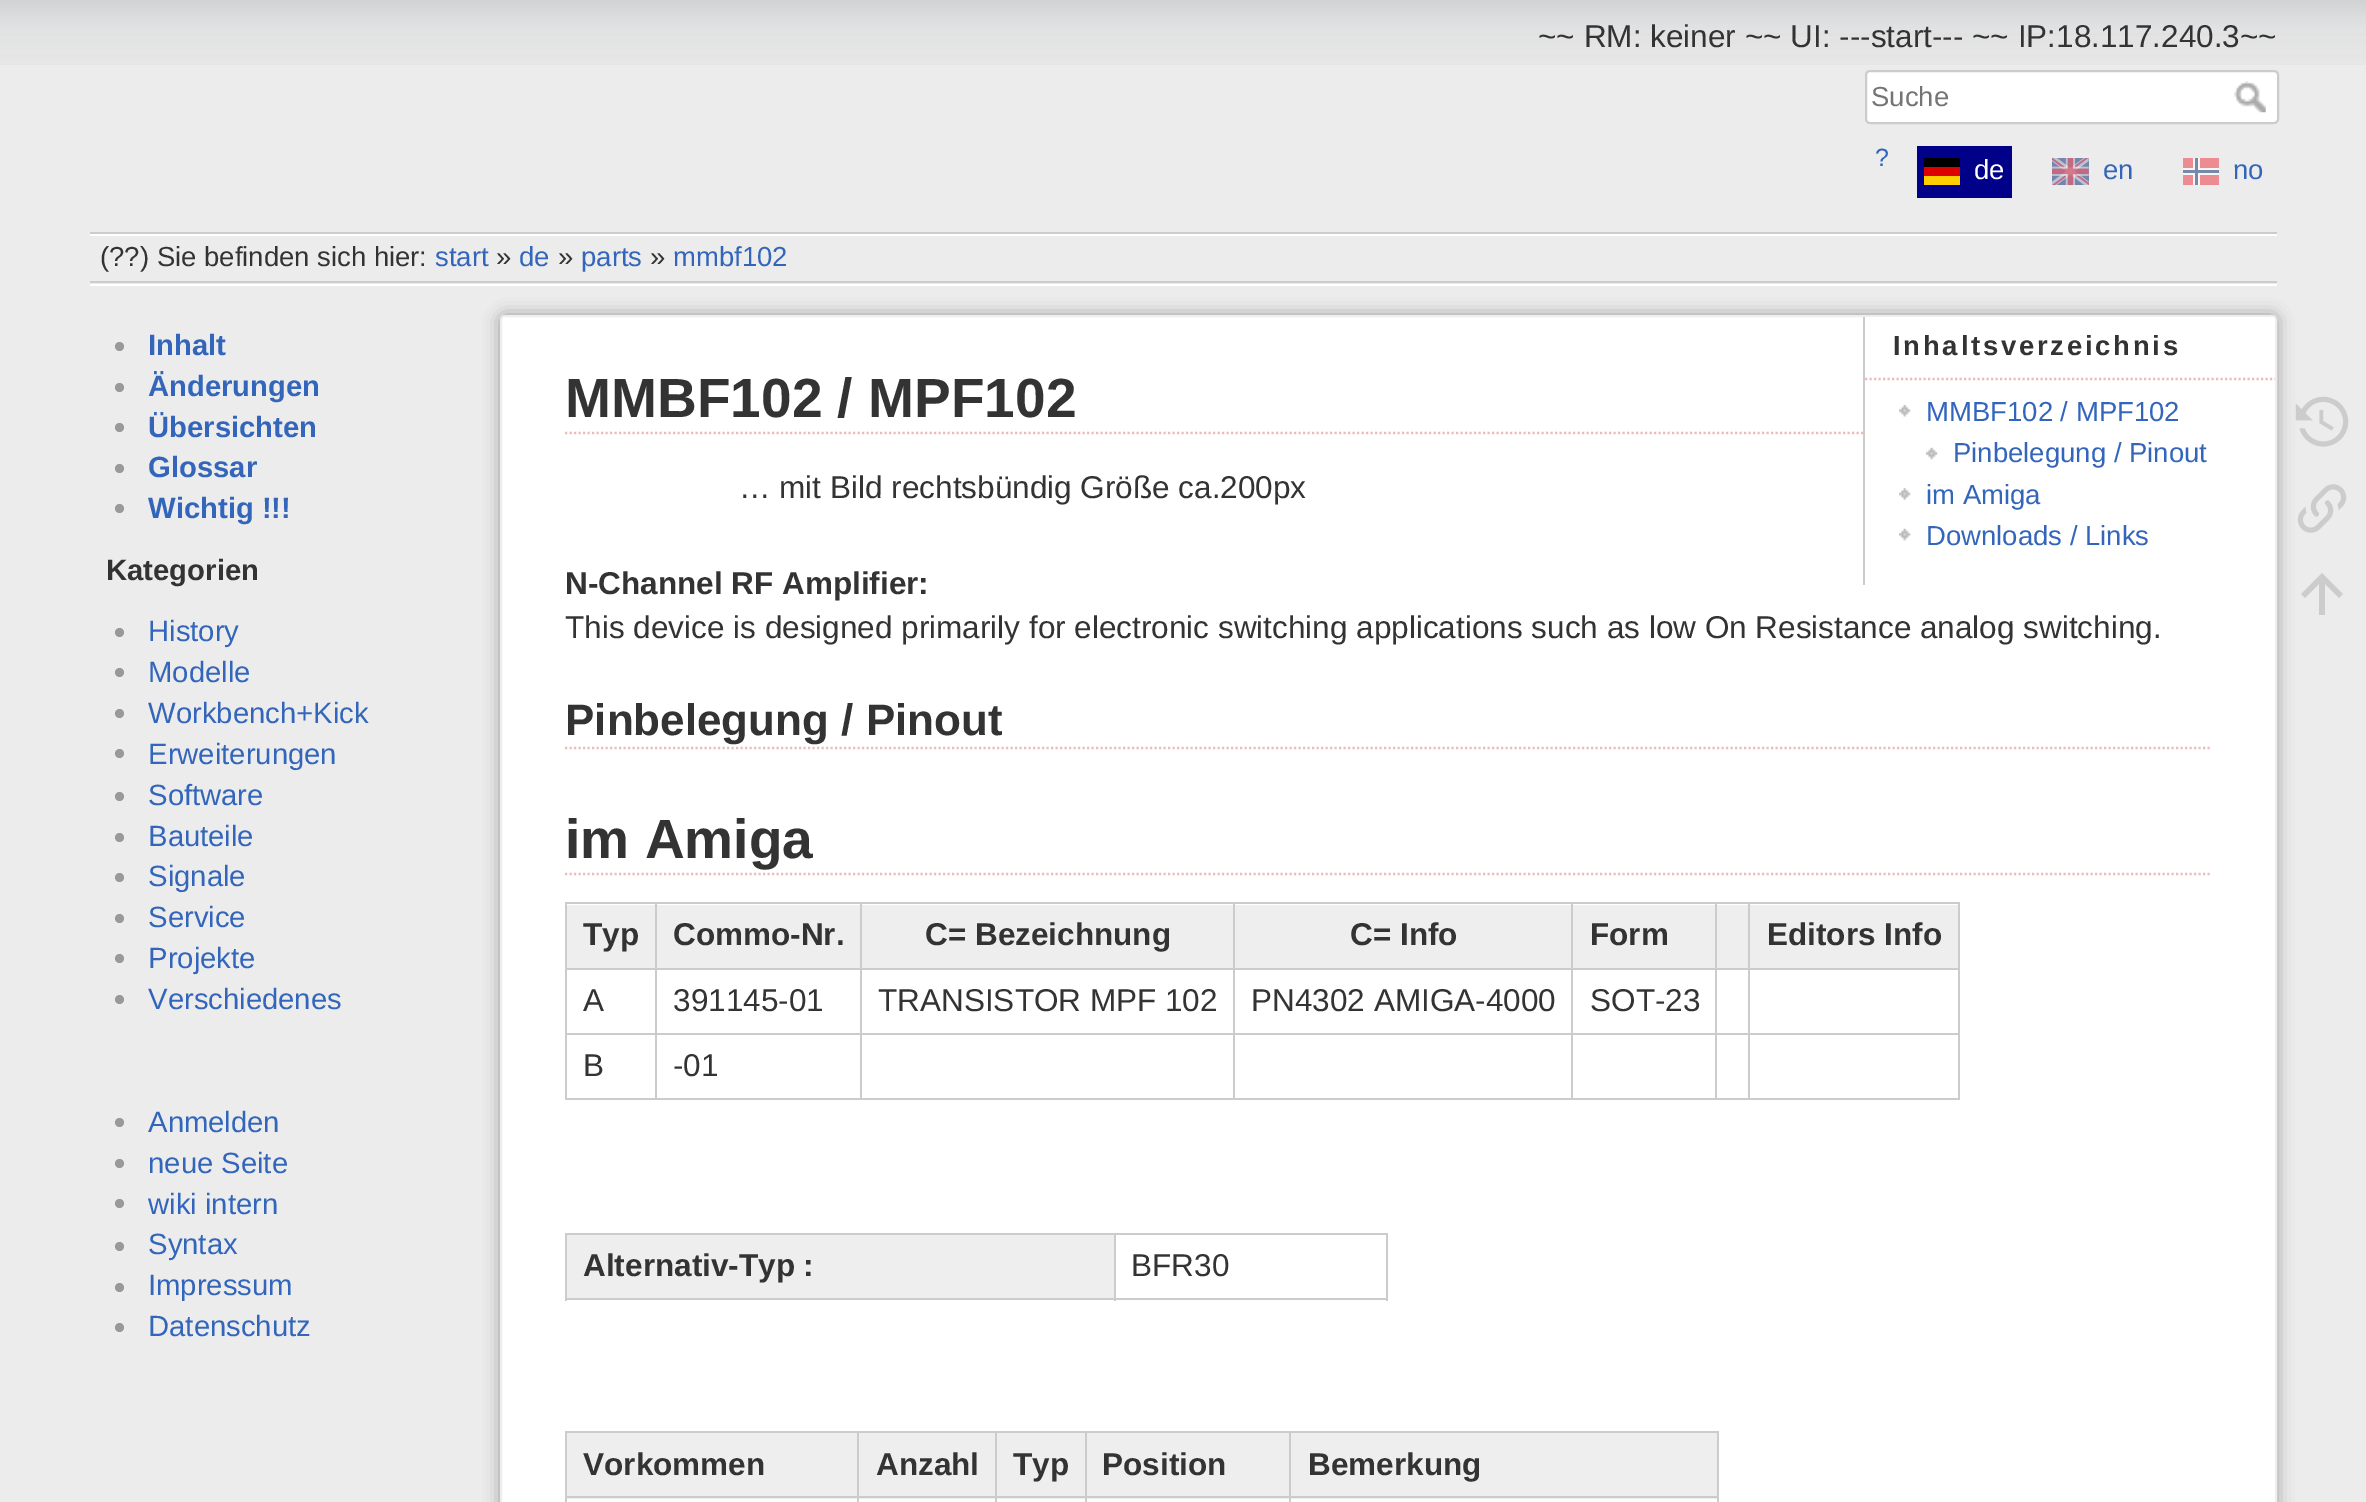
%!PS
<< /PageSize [2366 1502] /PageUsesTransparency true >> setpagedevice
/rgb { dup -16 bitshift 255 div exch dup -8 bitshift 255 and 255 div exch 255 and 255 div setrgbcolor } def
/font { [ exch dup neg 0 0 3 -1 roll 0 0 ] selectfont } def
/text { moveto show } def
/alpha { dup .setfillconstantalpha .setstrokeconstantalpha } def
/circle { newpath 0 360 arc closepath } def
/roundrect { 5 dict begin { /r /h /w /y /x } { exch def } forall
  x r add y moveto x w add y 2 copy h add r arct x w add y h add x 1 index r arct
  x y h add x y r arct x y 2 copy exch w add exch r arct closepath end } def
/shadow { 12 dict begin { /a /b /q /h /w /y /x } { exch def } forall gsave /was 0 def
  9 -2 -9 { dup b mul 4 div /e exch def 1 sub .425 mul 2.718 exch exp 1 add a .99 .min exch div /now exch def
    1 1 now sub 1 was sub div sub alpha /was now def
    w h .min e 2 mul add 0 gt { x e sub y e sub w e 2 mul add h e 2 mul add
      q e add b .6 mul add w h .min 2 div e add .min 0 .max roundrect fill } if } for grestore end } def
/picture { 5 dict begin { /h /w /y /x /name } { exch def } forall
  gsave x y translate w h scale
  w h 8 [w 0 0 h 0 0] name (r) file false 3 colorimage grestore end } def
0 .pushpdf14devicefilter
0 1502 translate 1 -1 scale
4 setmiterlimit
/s1 { /LiberationSans-Regular 31.5 font 16#333333 rgb } def
/s2 { /LiberationSans-Regular 27.5 font 16#757575 rgb } def
/s3 { /LiberationSans-Regular 25 font 16#3366BB rgb } def
/s4 { /LiberationSans-Regular 27.5 font 16#FFFFFF rgb } def
/s5 { /LiberationSans-Regular 27.5 font 16#3366BB rgb } def
/s6 { /LiberationSans-Regular 27.5 font 16#333333 rgb } def
/s7 { /LiberationSans-Bold 29.25 font 16#3366BB rgb } def
/s8 { /LiberationSans-Bold 29.25 font 16#333333 rgb } def
/s9 { /LiberationSans-Regular 29.25 font 16#3366BB rgb } def
/s10 { /LiberationSans-Bold 55.1 font 16#333333 rgb } def
/s11 { /LiberationSans-Bold 31.5 font 16#333333 rgb } def
/s12 { /LiberationSans-Bold 44 font 16#333333 rgb } def
16#ECECEC rgb
0 0 2366 1502 rectfill
(pic1.raw) 0 0 2366 65 picture
s1
(~~ RM: keiner ~~ UI: ---start--- ~~ IP:18.117.240.3~~) 1538 47 text
16#FFFFFF rgb
1866 71 412 52 4 roundrect gsave fill grestore
16#CCCCCC rgb
2 setlinewidth
stroke
s2
(Suche) 1871 106 text
(pic2.raw) 2234 81 32 32 picture
s3
(?) 1875 166 text
16#000088 rgb
1917 146 95 52 rectfill
16#000000 rgb
1924 158 36 9 rectfill
s4
(de) 1974 179 text
16#DD0000 rgb
1924 167 36 9 rectfill
16#FFCE00 rgb
1924 176 36 9 rectfill
(pic3.raw) 2052 158 37 28 picture
s5
(en) 2103 179 text
16#ED8B93 rgb
2183 158 36 27 rectfill
16#F6F6F6 rgb
2193 158 7 27 rectfill
2183 168 36 7 rectfill
16#7689A8 rgb
2195 158 3 27 rectfill
s5
(no) 2233 179 text
16#7689A8 rgb
2183 170 36 3 rectfill
16#CCCCCC rgb
90 232 2187 2 rectfill
16#FFFFFF rgb
90 284 2187 2 rectfill
90 234 2187 2 rectfill
16#CCCCCC rgb
90 281 2187 2 rectfill
s6
(\(??\) Sie befinden sich hier:) 100 266 text
s5
(start) 435 266 text
s6
(») 496 266 text
s5
(de) 519 266 text
s6
(») 558 266 text
s5
(parts) 581 266 text
s6
(») 650 266 text
s5
(mmbf102) 673 266 text
16#999999 rgb
119.5 346.5 4.5 circle fill
s7
(Inhalt) 148 355 text
16#999999 rgb
119.5 387.5 4.5 circle fill
s7
(Änderungen) 148 396 text
16#999999 rgb
119.5 427.5 4.5 circle fill
s7
(Übersichten) 148 437 text
16#999999 rgb
119.5 468.5 4.5 circle fill
s7
(Glossar) 148 477 text
16#999999 rgb
119.5 508.5 4.5 circle fill
s7
(Wichtig !!!) 148 518 text
s8
(Kategorien) 106 580 text
16#999999 rgb
119.5 632.5 4.5 circle fill
s9
(History) 148 641 text
16#999999 rgb
119.5 672.5 4.5 circle fill
s9
(Modelle) 148 682 text
16#999999 rgb
119.5 713.5 4.5 circle fill
s9
(Workbench+Kick) 148 723 text
16#999999 rgb
119.5 753.5 4.5 circle fill
s9
(Erweiterungen) 148 764 text
16#999999 rgb
119.5 796.5 4.5 circle fill
s9
(Software) 148 805 text
16#999999 rgb
119.5 837.5 4.5 circle fill
s9
(Bauteile) 148 846 text
16#999999 rgb
119.5 877.5 4.5 circle fill
s9
(Signale) 148 886 text
16#999999 rgb
119.5 918.5 4.5 circle fill
s9
(Service) 148 927 text
16#999999 rgb
119.5 958.5 4.5 circle fill
s9
(Projekte) 148 968 text
16#999999 rgb
119.5 999.5 4.5 circle fill
s9
(Verschiedenes) 148 1009 text
16#999999 rgb
119.5 1122.5 4.5 circle fill
s9
(Anmelden) 148 1132 text
16#999999 rgb
119.5 1163.5 4.5 circle fill
s9
(neue Seite) 148 1173 text
16#999999 rgb
119.5 1203.5 4.5 circle fill
s9
(wiki intern) 148 1214 text
16#999999 rgb
119.5 1246.5 4.5 circle fill
s9
(Syntax) 148 1254 text
16#999999 rgb
119.5 1287.5 4.5 circle fill
s9
(Impressum) 148 1295 text
16#999999 rgb
119.5 1327.5 4.5 circle fill
s9
(Datenschutz) 148 1336 text
16#999999 rgb
500 315 1777 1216 5 8 1 shadow
16#FFFFFF rgb
501 316 1775 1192 4 roundrect gsave fill grestore
16#EEEEEE rgb
stroke
16#EEBBBB rgb
2.2 setlinewidth
[2.25 2.25] 0 setdash
565 433 moveto 2212 433 lineto stroke
s10
(MMBF102 / MPF102) 565 417 text
16#FFFFFF rgb
1863 317 moveto 2273 317 lineto 2274 317 2275 318 2275 319 curveto 2275 585 lineto 1863 585 lineto closepath fill
16#CCCCCC rgb
1863 317 2 268 rectfill
16#EEBBBB rgb
1865 379 moveto 2275 379 lineto stroke
/LiberationSans-Bold 27.5 font
16#333333 rgb
1893 355 moveto 2.75 0 (Inhaltsverzeichnis) ashow
(pic4.raw) 1899 405 12 12 picture
s5
(MMBF102 / MPF102) 1926 421 text
(pic5.raw) 1926 447 12 13 picture
(Pinbelegung / Pinout) 1953 462 text
(pic6.raw) 1899 488 12 13 picture
(im Amiga) 1926 504 text
(pic5.raw) 1899 528 12 13 picture
(Downloads / Links) 1926 545 text
s1
(… mit Bild rechtsbündig Größe ca.200px) 739 498 text
s11
(N-Channel RF Amplifier:) 565 594 text
s1
(This device is designed primarily for electronic switching applications such as low On Resistance analog switching.) 565 638 text
16#EEBBBB rgb
565 748 moveto 2212 748 lineto stroke
s12
(Pinbelegung / Pinout) 565 735 text
16#EEBBBB rgb
565 874 moveto 2212 874 lineto stroke
s10
(im Amiga) 565 858 text
16#CCCCCC rgb
565 902 1395 2 rectfill
1958 902 2 198 rectfill
565 1098 1395 2 rectfill
565 902 2 198 rectfill
16#EEEEEE rgb
862 905 371 63 rectfill
16#CCCCCC rgb
1748 968 212 2 rectfill
1748 1033 212 2 rectfill
1748 1033 2 67 rectfill
1715 1033 36 2 rectfill
1748 968 2 67 rectfill
1715 968 36 2 rectfill
1715 1033 2 67 rectfill
1571 1033 146 2 rectfill
1715 968 2 67 rectfill
1571 968 146 2 rectfill
1571 1033 2 67 rectfill
1233 1033 340 2 rectfill
1571 968 2 67 rectfill
1233 968 340 2 rectfill
1233 1033 2 67 rectfill
860 1033 375 2 rectfill
1233 968 2 67 rectfill
860 968 375 2 rectfill
860 1033 2 67 rectfill
655 1033 207 2 rectfill
860 968 2 67 rectfill
655 968 207 2 rectfill
860 902 2 68 rectfill
s11
(C= Bezeichnung) 925 945 text
16#EEEEEE rgb
1235 905 336 63 rectfill
16#CCCCCC rgb
1233 902 2 68 rectfill
s11
(C= Info) 1350 945 text
16#EEEEEE rgb
1717 905 241 63 rectfill
16#CCCCCC rgb
1715 902 2 68 rectfill
16#EEEEEE rgb
567 905 88 63 rectfill
s11
(Typ) 583 945 text
16#EEEEEE rgb
657 905 203 63 rectfill
16#CCCCCC rgb
655 1033 2 67 rectfill
565 1033 92 2 rectfill
655 968 2 67 rectfill
565 968 92 2 rectfill
655 902 2 68 rectfill
s11
(Commo-Nr.) 673 945 text
16#EEEEEE rgb
1573 905 142 63 rectfill
16#CCCCCC rgb
1571 902 2 68 rectfill
s11
(Form) 1590 945 text
16#CCCCCC rgb
1748 902 2 68 rectfill
s11
(Editors Info) 1767 945 text
s1
(A) 583 1011 text
(391145-01) 673 1011 text
(TRANSISTOR MPF 102) 878 1011 text
(PN4302 AMIGA-4000) 1251 1011 text
(SOT-23) 1590 1011 text
(B) 583 1076 text
(-01) 673 1076 text
16#CCCCCC rgb
565 1233 823 2 rectfill
1386 1233 2 68 rectfill
565 1298 823 2 rectfill
565 1233 2 68 rectfill
16#EEEEEE rgb
567 1235 547 63 rectfill
s11
(Alternativ-Typ :) 583 1276 text
16#CCCCCC rgb
1114 1233 2 68 rectfill
s1
(BFR30) 1131 1276 text
16#CCCCCC rgb
565 1431 1154 2 rectfill
1717 1431 2 71 rectfill
565 1431 2 71 rectfill
16#EEEEEE rgb
567 1433 428 66 rectfill
s11
(Vorkommen) 583 1475 text
16#EEEEEE rgb
997 1433 88 66 rectfill
1087 1433 630 66 rectfill
16#CCCCCC rgb
1289 1496 430 2 rectfill
1289 1496 2 6 rectfill
1085 1496 207 2 rectfill
1085 1496 2 6 rectfill
995 1496 92 2 rectfill
995 1496 2 6 rectfill
857 1496 140 2 rectfill
857 1496 2 6 rectfill
565 1496 295 2 rectfill
857 1431 2 68 rectfill
s11
(Anzahl) 876 1475 text
16#CCCCCC rgb
995 1431 2 68 rectfill
s11
(Typ) 1013 1475 text
16#CCCCCC rgb
1085 1431 2 68 rectfill
s11
(Position) 1102 1475 text
16#CCCCCC rgb
1289 1431 2 68 rectfill
s11
(Bemerkung) 1308 1475 text
(pic7.raw) 2295 396 54 51 picture
(pic8.raw) 2297 484 50 49 picture
16#CCCCCC rgb
2325 615 moveto 2319 615 lineto 2319 584 lineto 2305 598 lineto 2301 594 lineto 2322 573 lineto 2343 594 lineto 2339 598 lineto 2325 584 lineto closepath fill
.poppdf14devicefilter showpage
